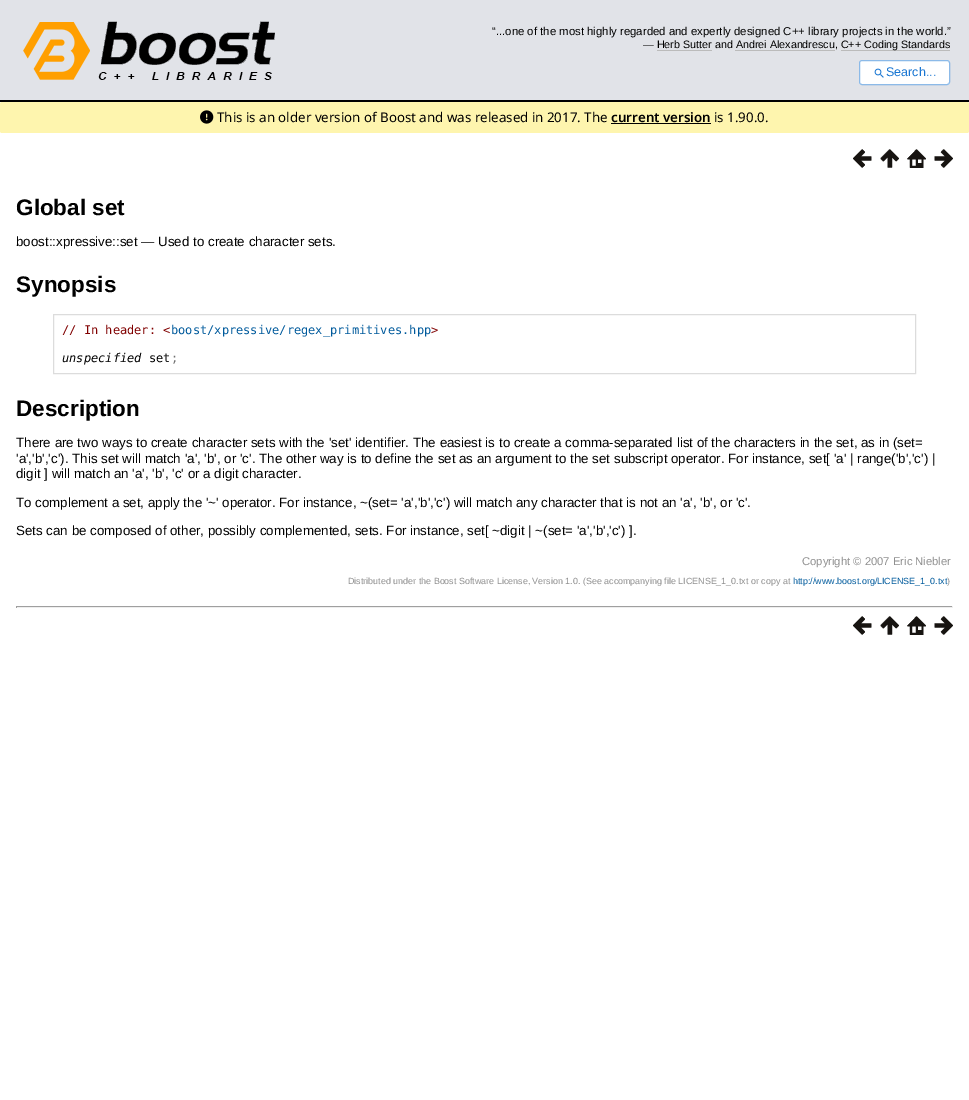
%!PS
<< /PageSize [969 1100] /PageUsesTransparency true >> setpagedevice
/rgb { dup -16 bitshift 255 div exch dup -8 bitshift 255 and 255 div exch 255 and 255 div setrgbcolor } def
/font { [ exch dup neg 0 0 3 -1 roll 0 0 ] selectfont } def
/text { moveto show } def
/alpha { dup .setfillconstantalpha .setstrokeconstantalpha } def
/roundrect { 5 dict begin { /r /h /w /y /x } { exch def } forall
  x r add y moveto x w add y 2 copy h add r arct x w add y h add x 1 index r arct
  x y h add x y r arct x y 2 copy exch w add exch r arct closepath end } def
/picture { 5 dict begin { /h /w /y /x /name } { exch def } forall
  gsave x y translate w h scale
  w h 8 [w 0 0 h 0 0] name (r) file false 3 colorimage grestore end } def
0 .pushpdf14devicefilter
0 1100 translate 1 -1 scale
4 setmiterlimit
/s1 { /LiberationSans-Regular 11.4 font 16#000000 rgb } def
/s2 { /LiberationSans-Regular 10.75 font 16#000000 rgb } def
/s3 { /LiberationSans-Regular 12.5 font 16#1976D2 rgb } def
/s4 { /NotoSans-Regular 13.33 font 16#000000 rgb } def
/s5 { /NotoSans-SemiBold 13.33 font 16#000000 rgb } def
/s6 { /LiberationSans-Bold 22.5 font 16#000000 rgb } def
/s7 { /LiberationSans-Regular 13.33 font 16#000000 rgb } def
/s8 { /DejaVuSansMono-Regular 12 font 16#800000 rgb } def
/s9 { /DejaVuSansMono-Regular 12 font 16#005A9C rgb } def
/s10 { /DejaVuSansMono-Italic 12 font 16#000000 rgb } def
/s11 { /DejaVuSansMono-Regular 12 font 16#000000 rgb } def
/s12 { /DejaVuSansMono-Regular 12 font 16#707070 rgb } def
/s13 { /LiberationSans-Regular 11.25 font 16#8F8F8F rgb } def
/s14 { /LiberationSans-Regular 8.95 font 16#8F8F8F rgb } def
/s15 { /LiberationSans-Regular 8.95 font 16#005A9C rgb } def
16#FFFFFF rgb
0 0 969 1100 rectfill
16#E1E3E8 rgb
0 0 969 100 rectfill
16#000000 rgb
0 100 969 2 rectfill
(pic1.raw) 23 21 252 59 picture
s1
(“...one of the most highly regarded and expertly designed C++ library projects in the world.”) 492 35 text
s2
(— Herb Sutter and Andrei Alexandrescu, C++) 643 48 text
16#BBBBBB rgb
841 50 109 1 rectfill
s2
(Coding Standards) 864 48 text
16#BBBBBB rgb
657 50 55 1 rectfill
735 50 100 1 rectfill
16#FFFFFF rgb
859 60 91 25 3 roundrect fill
0.5 alpha
16#1976D2 rgb
859.5 60.5 90 24 2.5 roundrect stroke
1 alpha
(pic2.raw) 874 68 10 10 picture
s3
(Search...) 886 76 text
16#FEF5AE rgb
0 102 969 31 2 roundrect fill
(pic3.raw) 200 110 14 14 picture
s4
(This is an older version of Boost and was released in 2017. The) 217 122 text
s5
(current version) 611 122 text
611 123 100 1 rectfill
s4
(is 1.90.0.) 714 122 text
(pic4.raw) 853 149 19 19 picture
(pic5.raw) 880 149 19 19 picture
(pic6.raw) 907 149 19 19 picture
(pic7.raw) 934 149 19 19 picture
s6
(Global set) 16 215 text
s7
(boost::xpressive::set — Used to create character sets.) 16 246 text
s6
(Synopsis) 16 292 text
16#DCDCDC rgb
53.5 314.5 862 59 rectstroke
s8
(// In header: <) 62 334 text
s9
(boost/xpressive/regex_primitives.hpp) 171 334 text
s8
(>) 431 334 text
s10
(unspecified) 62 362 text
s11
(set) 149 362 text
s12
(;) 171 362 text
s6
(Description) 16 416 text
s7
(There are two ways to create character sets with the 'set' identifier. The easiest is to create a comma-separated list of the characters in the set, as in \(set=) 16 447 text
('a','b','c'\). This set will match 'a', 'b', or 'c'. The other way is to define the set as an argument to the set subscript operator. For instance, set[ 'a' | range\('b','c'\) |) 16 463 text
(digit ] will match an 'a', 'b', 'c' or a digit character.) 16 478 text
(To complement a set, apply the '~' operator. For instance, ~\(set= 'a','b','c'\) will match any character that is not an 'a', 'b', or 'c'.) 16 507 text
(Sets can be composed of other, possibly complemented, sets. For instance, set[ ~digit | ~\(set= 'a','b','c'\) ].) 16 535 text
s13
(Copyright © 2007 Eric Niebler) 802 565 text
s14
(Distributed under the Boost Software License, Version 1.0. \(See accompanying file LICENSE_1_0.txt or copy at) 348 584 text
s15
(http://www.boost.org/LICENSE_1_0.txt) 793 584 text
s14
(\)) 947 584 text
16#9F9F9F rgb
16 606 937 1 rectfill
16#EEEEEE rgb
952 606 1 2 rectfill
16 607 937 1 rectfill
16#9F9F9F rgb
16 606 1 2 rectfill
(pic4.raw) 853 616 19 19 picture
(pic5.raw) 880 616 19 19 picture
(pic6.raw) 907 616 19 19 picture
(pic7.raw) 934 616 19 19 picture
.poppdf14devicefilter showpage
